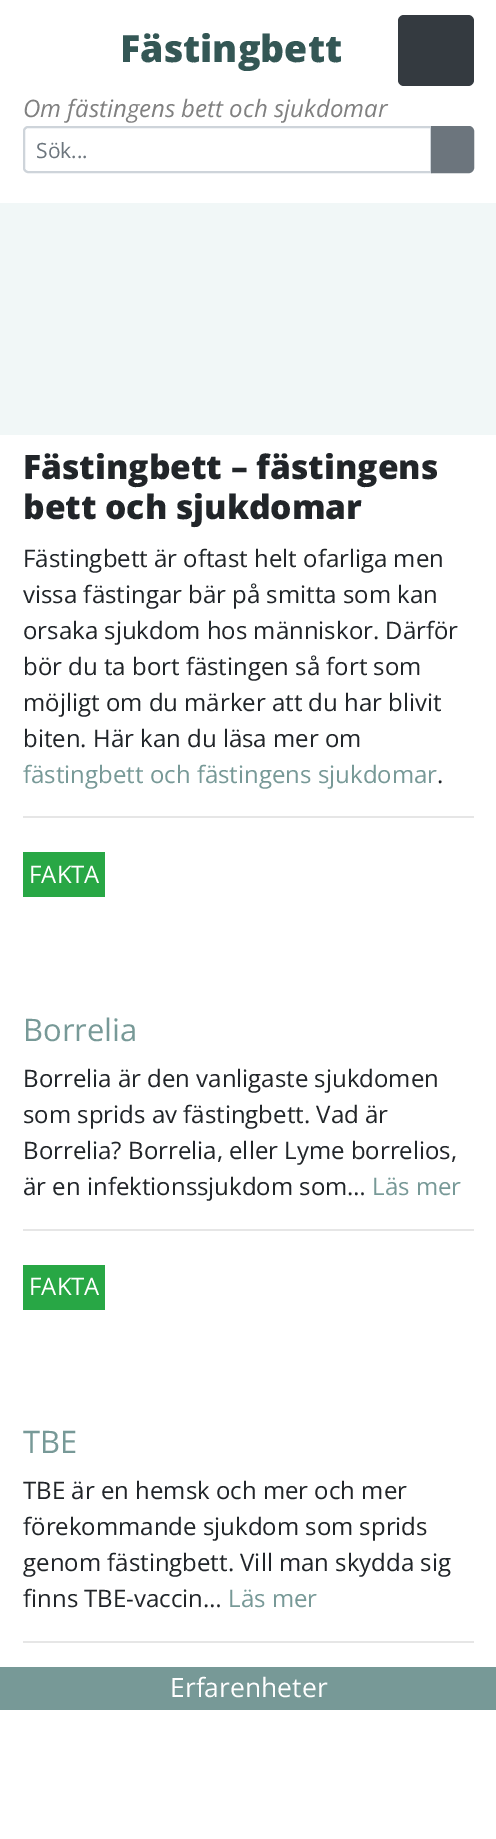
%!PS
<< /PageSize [496 1839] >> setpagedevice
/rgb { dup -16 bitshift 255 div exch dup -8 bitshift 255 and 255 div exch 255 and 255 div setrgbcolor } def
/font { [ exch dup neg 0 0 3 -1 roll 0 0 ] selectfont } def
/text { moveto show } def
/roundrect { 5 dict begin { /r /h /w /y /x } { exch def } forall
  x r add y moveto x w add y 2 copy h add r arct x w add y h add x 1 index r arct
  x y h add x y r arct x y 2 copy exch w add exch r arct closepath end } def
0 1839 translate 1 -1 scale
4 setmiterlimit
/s1 { /OpenSans-ExtraBold 37.5 font 16#345755 rgb } def
/s2 { /OpenSans-Italic 24 font 16#808080 rgb } def
/s3 { /OpenSans-Regular 21 font 16#6C757D rgb } def
/s4 { /OpenSans-ExtraBold 33.6 font 16#212529 rgb } def
/s5 { /OpenSans-Regular 24 font 16#212529 rgb } def
/s6 { /OpenSans-Regular 24 font 16#779997 rgb } def
/s7 { /OpenSans-Regular 24 font 16#FFFFFF rgb } def
/s8 { /OpenSans-Regular 31 font 16#779997 rgb } def
/s9 { /OpenSans-Regular 26.5 font 16#FFFFFF rgb } def
16#F1F7F7 rgb
0 0 496 1839 rectfill
16#FFFFFF rgb
0 0 496 203 rectfill
s1
(Fästingbett) 120 62 text
16#343A40 rgb
398 15 76 71 6 roundrect fill
s2
(Om fästingens bett och sjukdomar) 23 117 text
16#CED4DA rgb
2 setlinewidth
28 127 moveto 431 127 lineto 431 172 lineto 28 172 lineto 26 172 24 170 24 168 curveto 24 131 lineto 24 129 26 127 28 127 curveto closepath stroke
s3
(Sök...) 36 158 text
432 127 moveto 469 127 lineto 471 127 473 129 473 131 curveto 473 168 lineto 473 170 471 172 469 172 curveto 432 172 lineto closepath gsave fill grestore
stroke
16#FFFFFF rgb
0 435 496 1232 rectfill
s4
(Fästingbett – fästingens) 23 479 text
(bett och sjukdomar) 23 519 text
s5
(Fästingbett är oftast helt ofarliga men) 23 567 text
(vissa fästingar bär på smitta som kan) 23 603 text
(orsaka sjukdom hos människor. Därför) 23 639 text
(bör du ta bort fästingen så fort som) 23 675 text
(möjligt om du märker att du har blivit) 23 711 text
(biten. Här kan du läsa mer om) 23 747 text
s6
(fästingbett och fästingens sjukdomar) 23 783 text
s5
(.) 437 783 text
16#E6E6E6 rgb
23 816 451 2 rectfill
16#28A745 rgb
23 852 82 45 rectfill
s7
(FAKTA) 29 883 text
s8
(Borrelia) 23 1041 text
s5
(Borrelia är den vanligaste sjukdomen) 23 1087 text
(som sprids av fästingbett. Vad är) 23 1123 text
(Borrelia? Borrelia, eller Lyme borrelios,) 23 1159 text
(är en infektionssjukdom som…) 23 1195 text
s6
(Läs mer) 372 1195 text
16#E6E6E6 rgb
23 1229 451 2 rectfill
16#28A745 rgb
23 1265 82 45 rectfill
s7
(FAKTA) 29 1295 text
s8
(TBE) 23 1453 text
s5
(TBE är en hemsk och mer och mer) 23 1499 text
(förekommande sjukdom som sprids) 23 1535 text
(genom fästingbett. Vill man skydda sig) 23 1571 text
(finns TBE-vaccin…) 23 1607 text
s6
(Läs mer) 228 1607 text
16#E6E6E6 rgb
23 1641 451 2 rectfill
16#FFFFFF rgb
0 1710 496 129 rectfill
16#779997 rgb
0 1667 496 43 rectfill
s9
(Erfarenheter) 170 1697 text
showpage
